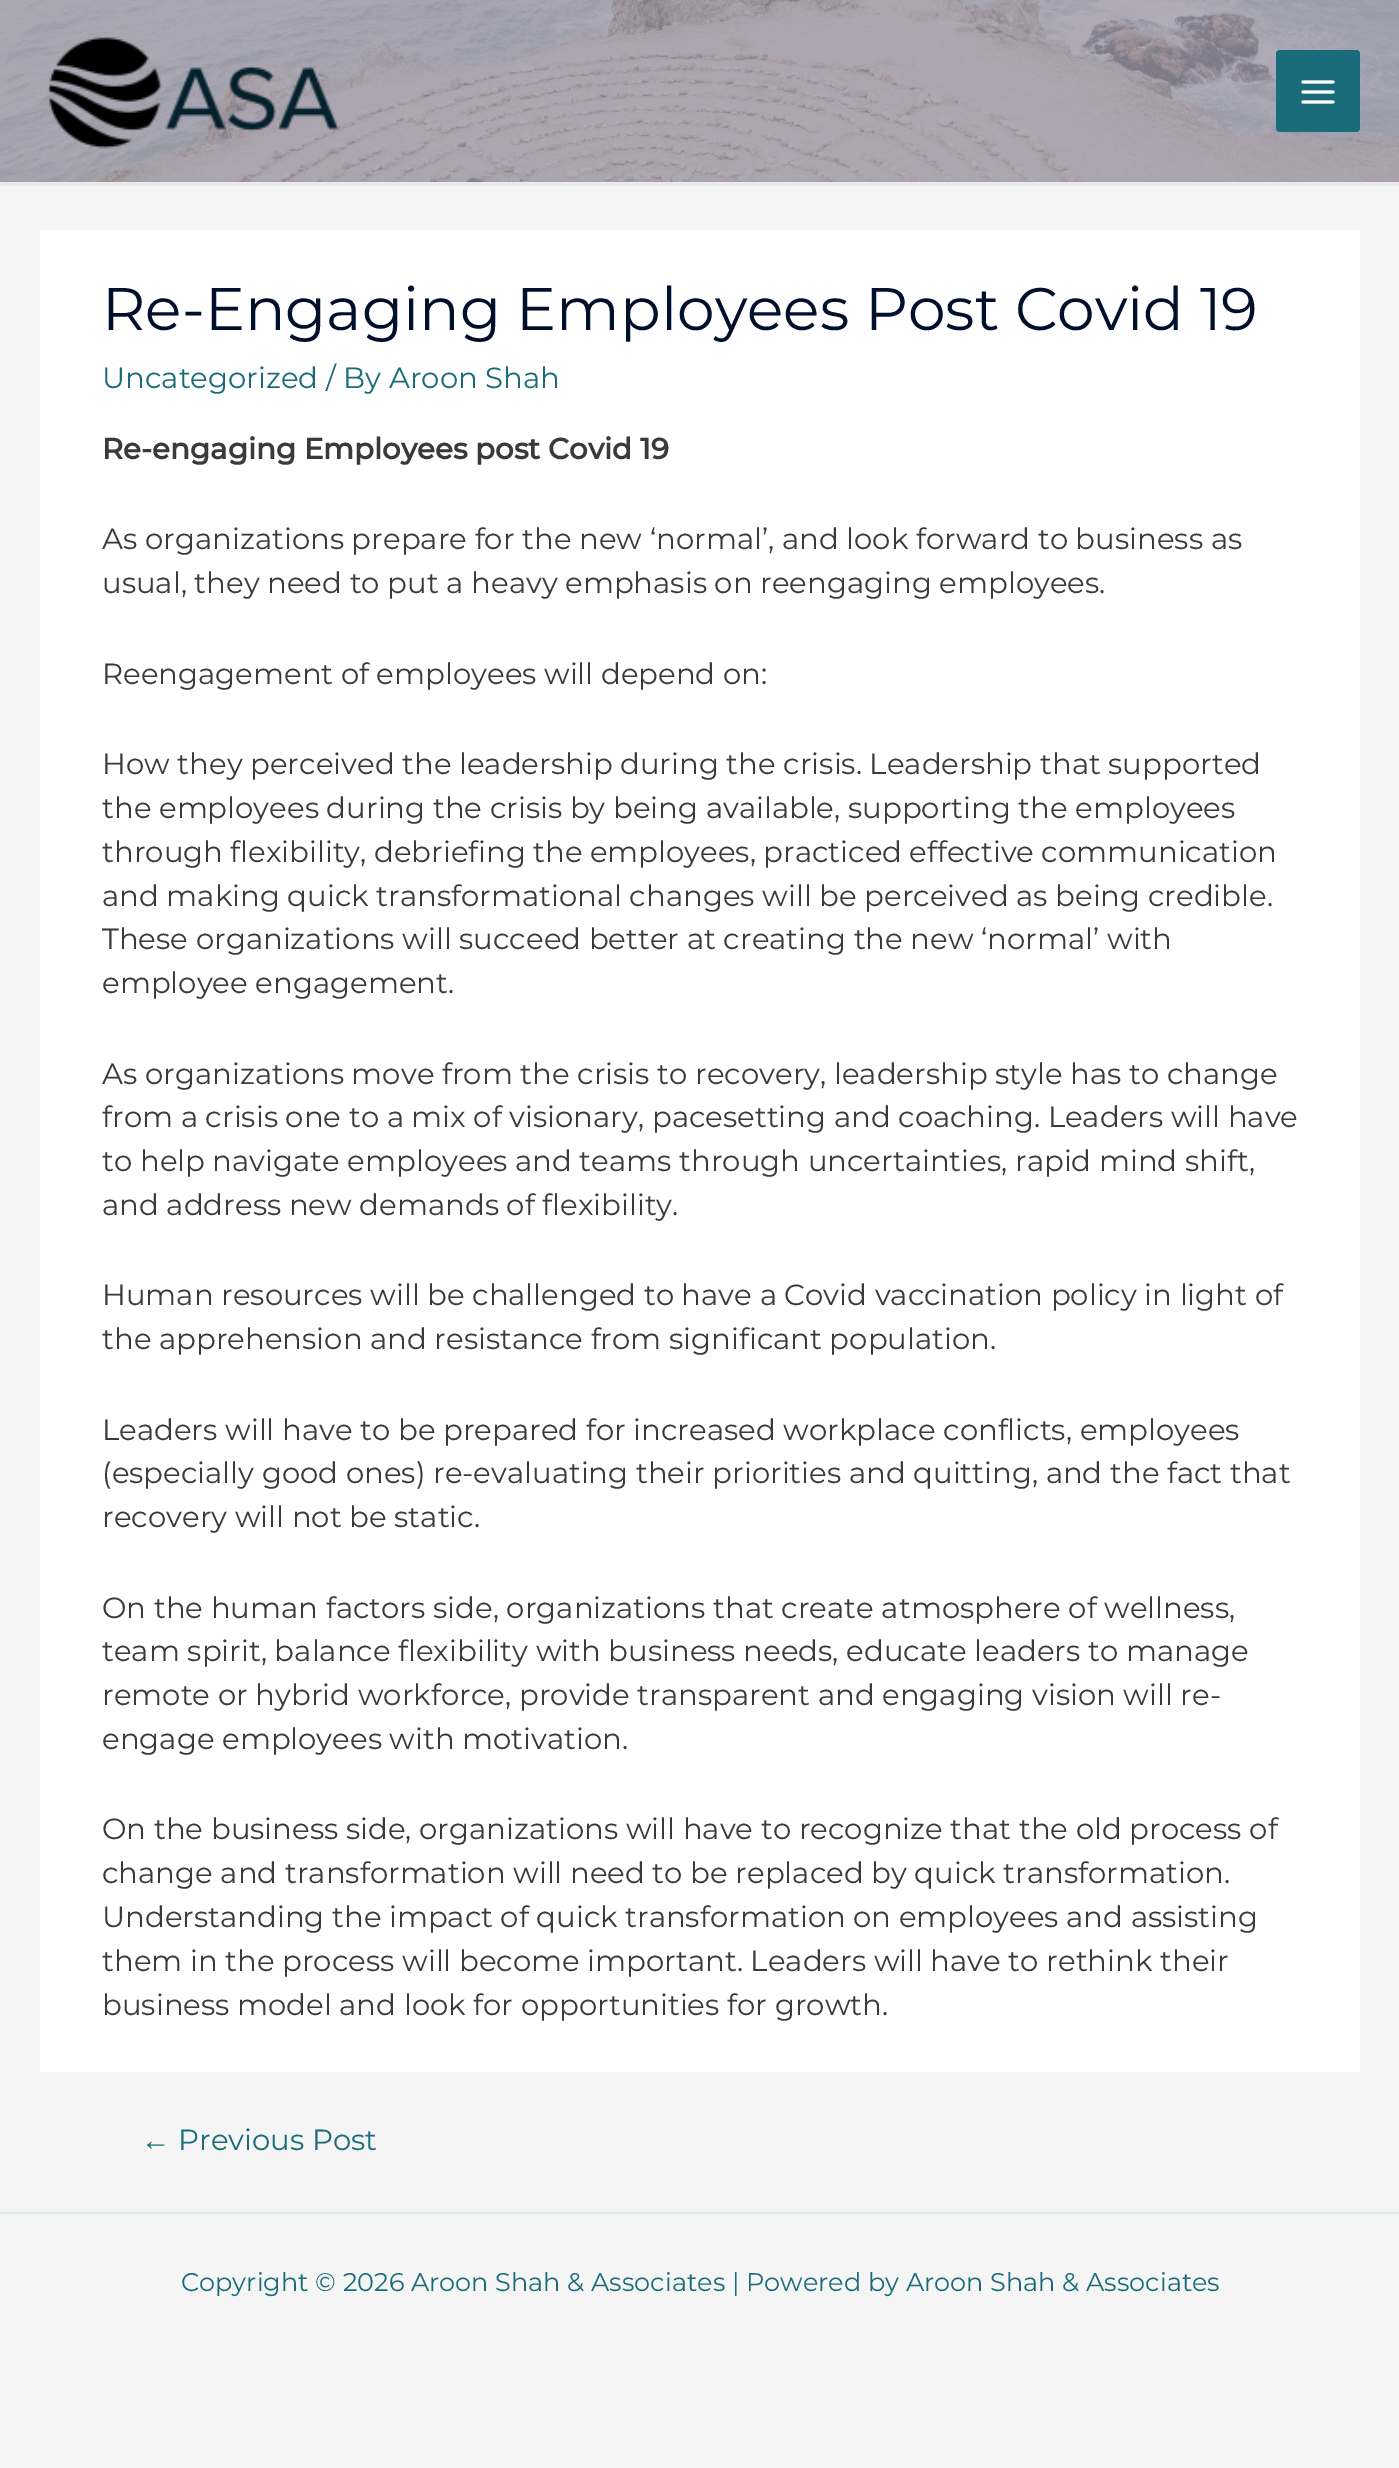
%!PS
<< /PageSize [1399 2468] >> setpagedevice
/rgb { dup -16 bitshift 255 div exch dup -8 bitshift 255 and 255 div exch 255 and 255 div setrgbcolor } def
/font { [ exch dup neg 0 0 3 -1 roll 0 0 ] selectfont } def
/text { moveto show } def
/roundrect { 5 dict begin { /r /h /w /y /x } { exch def } forall
  x r add y moveto x w add y 2 copy h add r arct x w add y h add x 1 index r arct
  x y h add x y r arct x y 2 copy exch w add exch r arct closepath end } def
/picture { 5 dict begin { /h /w /y /x /name } { exch def } forall
  gsave x y translate w h scale
  w h 8 [w 0 0 h 0 0] name (r) file false 3 colorimage grestore end } def
0 2468 translate 1 -1 scale
4 setmiterlimit
/s1 { /Montserrat-Regular 60 font 16#000F2B rgb } def
/s2 { /Montserrat-Regular 29.2 font 16#1A6C7A rgb } def
/s3 { /Montserrat-Bold 29.2 font 16#3A3A3A rgb } def
/s4 { /Montserrat-Regular 29.2 font 16#3A3A3A rgb } def
/s5 { /LiberationSans-Regular 29.2 font 16#1A6C7A rgb } def
/s6 { /Montserrat-Regular 25.55 font 16#1A6C7A rgb } def
16#F5F5F5 rgb
0 0 1399 2468 rectfill
(pic1.raw) 0 0 1399 182 picture
16#EAEAEA rgb
0 182 1399 4 rectfill
(pic2.raw) 47 37 292 112 picture
16#1A6C7A rgb
1276 50 84 82 4 roundrect fill
(pic3.raw) 1301 80 34 24 picture
16#FFFFFF rgb
40 230 1320 1842 rectfill
s1
(Re-Engaging Employees Post Covid 19) 102 330 text
s2
(Uncategorized / By Aroon Shah) 102 388 text
s3
(Re-engaging Employees post Covid 19) 102 459 text
s4
(As organizations prepare for the new ‘normal’, and look forward to business as) 102 549 text
(usual, they need to put a heavy emphasis on reengaging employees.) 102 593 text
102 684 moveto -0.1 0 32 (Reengagement of employees will depend on:) widthshow
(How they perceived the leadership during the crisis. Leadership that supported) 102 774 text
(the employees during the crisis by being available, supporting the employees) 102 818 text
102 862 moveto -0.25 0 32 (through flexibility, debriefing the employees, practiced effective communication) widthshow
(and making quick transformational changes will be perceived as being credible.) 102 906 text
(These organizations will succeed better at creating the new ‘normal’ with) 102 949 text
(employee engagement.) 102 993 text
(As organizations move from the crisis to recovery, leadership style has to change) 102 1084 text
(from a crisis one to a mix of visionary, pacesetting and coaching. Leaders will have) 102 1127 text
(to help navigate employees and teams through uncertainties, rapid mind shift,) 102 1171 text
(and address new demands of flexibility.) 102 1215 text
(Human resources will be challenged to have a Covid vaccination policy in light of) 102 1305 text
(the apprehension and resistance from significant population.) 102 1349 text
(Leaders will have to be prepared for increased workplace conflicts, employees) 102 1440 text
(\(especially good ones\) re-evaluating their priorities and quitting, and the fact that) 102 1483 text
(recovery will not be static.) 102 1527 text
(On the human factors side, organizations that create atmosphere of wellness,) 102 1618 text
(team spirit, balance flexibility with business needs, educate leaders to manage) 102 1661 text
(remote or hybrid workforce, provide transparent and engaging vision will re-) 102 1705 text
(engage employees with motivation.) 102 1749 text
(On the business side, organizations will have to recognize that the old process of) 102 1839 text
(change and transformation will need to be replaced by quick transformation.) 102 1883 text
102 1927 moveto -0.1 0 32 (Understanding the impact of quick transformation on employees and assisting) widthshow
(them in the process will become important. Leaders will have to rethink their) 102 1971 text
(business model and look for opportunities for growth.) 102 2015 text
s5
(←) 141 2150 text
s2
(Previous Post) 178 2150 text
16#DBE8EB rgb
0 2212 1399 2 rectfill
s6
(Copyright © 2026 Aroon Shah & Associates | Powered by Aroon Shah & Associates) 181 2291 text
showpage
